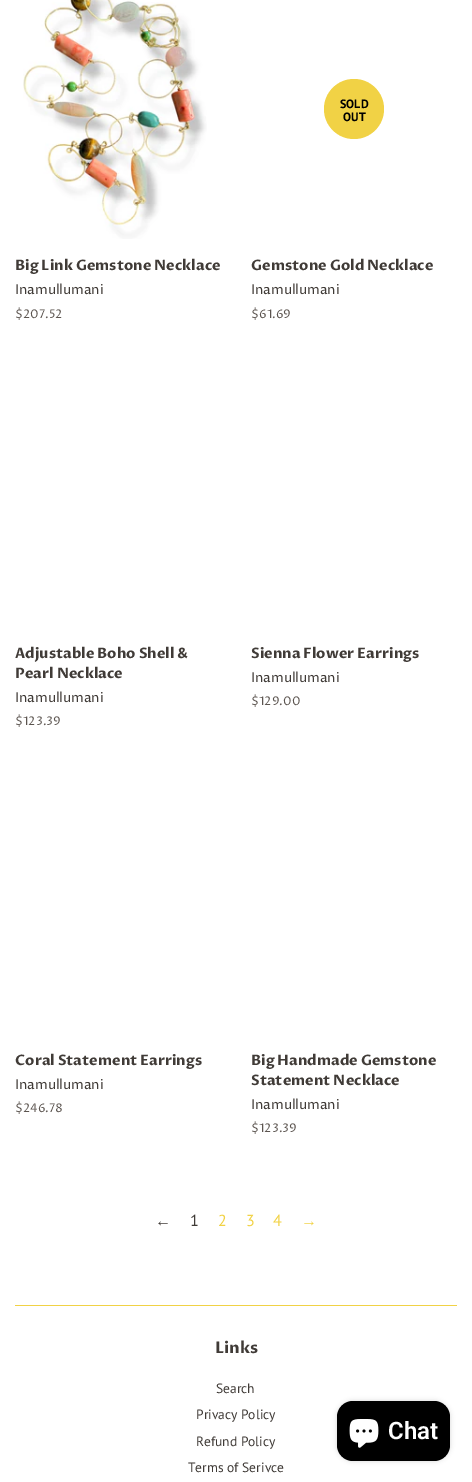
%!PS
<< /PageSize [472 1482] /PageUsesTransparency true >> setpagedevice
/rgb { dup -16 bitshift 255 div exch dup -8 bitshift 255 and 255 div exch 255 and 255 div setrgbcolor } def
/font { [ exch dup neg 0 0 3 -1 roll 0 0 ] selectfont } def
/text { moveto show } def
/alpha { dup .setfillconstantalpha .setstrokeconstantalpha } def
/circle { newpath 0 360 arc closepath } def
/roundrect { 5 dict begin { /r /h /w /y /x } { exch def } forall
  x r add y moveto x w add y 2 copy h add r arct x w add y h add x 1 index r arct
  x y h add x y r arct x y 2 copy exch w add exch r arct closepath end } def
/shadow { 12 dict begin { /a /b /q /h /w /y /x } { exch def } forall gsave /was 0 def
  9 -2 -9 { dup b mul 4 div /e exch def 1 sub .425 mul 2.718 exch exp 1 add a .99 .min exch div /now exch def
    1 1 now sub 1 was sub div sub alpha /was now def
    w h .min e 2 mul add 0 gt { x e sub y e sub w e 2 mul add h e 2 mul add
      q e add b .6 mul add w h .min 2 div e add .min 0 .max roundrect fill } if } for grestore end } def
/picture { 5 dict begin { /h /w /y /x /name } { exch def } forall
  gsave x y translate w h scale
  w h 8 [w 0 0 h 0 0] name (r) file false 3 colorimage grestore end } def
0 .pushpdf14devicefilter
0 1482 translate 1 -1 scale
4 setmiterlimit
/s1 { /ProzaLibre-Bold 14.4 font 16#403B37 rgb } def
/s2 { /ProzaLibre-Regular 13.5 font 16#403B37 rgb } def
/s3 { /ProzaLibre-Regular 12 font 16#5B544F rgb } def
/s4 { /PTSans-Bold 12 font 16#000000 rgb } def
/s5 { /LiberationSans-Regular 16 font 16#403B37 rgb } def
/s6 { /PTSans-Regular 16 font 16#403B37 rgb } def
/s7 { /PTSans-Regular 16 font 16#F1D245 rgb } def
/s8 { /LiberationSans-Regular 16 font 16#F1D245 rgb } def
/s9 { /ProzaLibre-Bold 16 font 16#403B37 rgb } def
/s10 { /PTSans-Regular 13.5 font 16#403B37 rgb } def
/s11 { /Roboto-SemiBold 24 font 16#FFFFFF rgb } def
16#FFFFFF rgb
0 0 472 1482 rectfill
(pic1.raw) 23 0 184 239 picture
s1
(Big Link Gemstone Necklace) 15 270 text
s2
(Inamullumani) 15 294 text
s3
($207.52) 15 318 text
16#F1D245 rgb
354 109 30 circle fill
s4
(SOLD) 340 108 text
(OUT) 343 121 text
s1
(Gemstone Gold Necklace) 251 270 text
s2
(Inamullumani) 251 294 text
s3
($61.69) 251 318 text
s1
(Adjustable Boho Shell &) 15 658 text
(Pearl Necklace) 15 678 text
s2
(Inamullumani) 15 702 text
s3
($123.39) 15 725 text
s1
(Sienna Flower Earrings) 251 658 text
s2
(Inamullumani) 251 682 text
s3
($129.00) 251 705 text
s1
(Coral Statement Earrings) 15 1065 text
s2
(Inamullumani) 15 1089 text
s3
($246.78) 15 1112 text
s1
(Big Handmade Gemstone) 251 1065 text
(Statement Necklace) 251 1085 text
s2
(Inamullumani) 251 1109 text
s3
($123.39) 251 1132 text
s5
(←) 155 1226 text
s6
(1) 190 1226 text
s7
(2) 218 1226 text
(3) 246 1226 text
(4) 273 1226 text
s8
(→) 301 1226 text
15 1305 442 1 rectfill
s9
(Links) 215 1353 text
s10
(Search) 216 1393 text
(Privacy Policy) 196 1419 text
(Refund Policy) 196 1446 text
(Terms of Serivce) 188 1472 text
16#000000 rgb
337 1401 113 60 16 2.5 0.15 shadow
337 1401 113 60 16 roundrect fill
(pic2.raw) 349 1419 30 29 picture
s11
(Chat) 388 1439 text
.poppdf14devicefilter showpage
